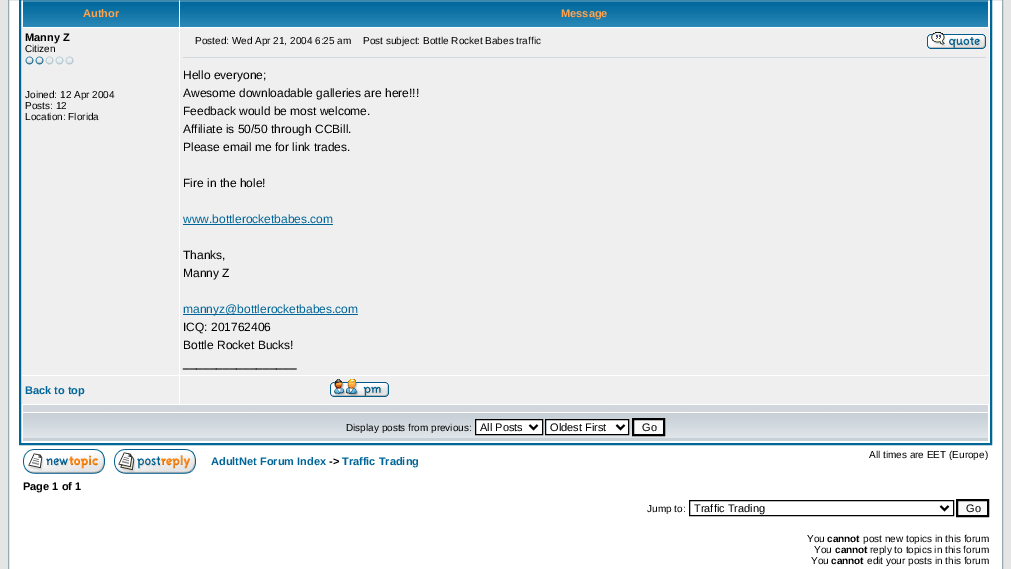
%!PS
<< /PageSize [1011 569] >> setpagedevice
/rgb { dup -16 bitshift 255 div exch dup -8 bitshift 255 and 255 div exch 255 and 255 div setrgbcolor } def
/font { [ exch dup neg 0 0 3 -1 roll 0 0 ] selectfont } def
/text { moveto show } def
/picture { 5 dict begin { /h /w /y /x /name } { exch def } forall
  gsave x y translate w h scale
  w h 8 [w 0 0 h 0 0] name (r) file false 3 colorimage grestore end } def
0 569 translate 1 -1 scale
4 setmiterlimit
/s1 { /LiberationSans-Bold 11 font 16#FFA34F rgb } def
/s2 { /LiberationSans-Bold 11 font 16#000000 rgb } def
/s3 { /LiberationSans-Regular 10 font 16#000000 rgb } def
/s4 { /LiberationSans-Regular 12 font 16#000000 rgb } def
/s5 { /LiberationSans-Regular 12 font 16#006699 rgb } def
/s6 { /LiberationSans-Bold 11 font 16#006699 rgb } def
/s7 { /LiberationSans-Regular 11 font 16#000000 rgb } def
/s8 { /LiberationSans-Bold 10 font 16#000000 rgb } def
16#E5E5E5 rgb
0 0 1011 569 rectfill
16#FFFFFF rgb
8.5 -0.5 moveto 1002.5 -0.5 lineto 1002.5 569.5 lineto 8.5 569.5 lineto closepath gsave fill grestore
16#98AAB1 rgb
stroke
16#006699 rgb
2 setlinewidth
20 -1 971 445 rectstroke
(pic1.raw) 23 0 156 27 picture
s1
(Author) 83 17 text
(pic2.raw) 180 0 808 27 picture
(Message) 561 17 text
16#EFEFEF rgb
22 28 157 347 rectfill
s2
(Manny Z) 25 41 text
s3
(Citizen) 25 52 text
(pic3.raw) 25 56 49 9 picture
(Joined: 12 Apr 2004) 25 98 text
(Posts: 12) 25 109 text
(Location: Florida) 25 120 text
16#EFEFEF rgb
180 28 809 347 rectfill
s3
(Posted: Wed Apr 21, 2004 6:25 am) 195 44 text
(Post subject: Bottle Rocket Babes traffic) 363 44 text
(pic4.raw) 927 32 59 17 picture
16#D1D7DC rgb
183 57 803 1 rectfill
s4
(Hello everyone;) 183 79 text
(Awesome downloadable galleries are here!!!) 183 97 text
(Feedback would be most welcome.) 183 115 text
(Affiliate is 50/50 through CCBill.) 183 133 text
(Please email me for link trades.) 183 151 text
(Fire in the hole!) 183 187 text
s5
(www.bottlerocketbabes.com) 183 223 text
183 224 150 1 rectfill
s4
(Thanks,) 183 259 text
(Manny Z) 183 277 text
16#006699 rgb
183 314 175 1 rectfill
(mannyz@bottlerocketbabes.com) 183 313 text
s4
(ICQ: 201762406) 183 331 text
(Bottle Rocket Bucks!) 183 349 text
(_________________) 183 367 text
16#EFEFEF rgb
22 376 157 28 rectfill
s6
(Back to top) 25 394 text
16#EFEFEF rgb
180 376 809 28 rectfill
(pic5.raw) 330 379 59 18 picture
16#D1D7DC rgb
23 405 965 7 rectfill
(pic6.raw) 23 413 965 28 picture
s3
(Display posts from previous:) 346 431 text
16#FFFFFF rgb
475.5 419.5 moveto 542.5 419.5 lineto 542.5 434.5 lineto 475.5 434.5 lineto closepath gsave fill grestore
16#000000 rgb
1 setlinewidth
stroke
2 setlinewidth
529.5 425 moveto 533.5 429 lineto 537.5 425 lineto stroke
s7
(All Posts) 480 431 text
16#FFFFFF rgb
545.5 419.5 moveto 628.5 419.5 lineto 628.5 434.5 lineto 545.5 434.5 lineto closepath gsave fill grestore
16#000000 rgb
1 setlinewidth
stroke
2 setlinewidth
616.5 425 moveto 620.5 429 lineto 624.5 425 lineto stroke
(Oldest First) 550 431 text
16#FAFAFA rgb
633 419 moveto 664 419 lineto 664 435 lineto 633 435 lineto closepath gsave fill grestore
16#000000 rgb
stroke
(Go) 642 431 text
(pic7.raw) 23 449 82 25 picture
(pic8.raw) 114 449 82 25 picture
s3
(All times are EET \(Europe\)) 869 458 text
s6
(AdultNet Forum Index) 211 465 text
s2
(->) 329 465 text
s6
(Traffic Trading) 342 465 text
s2
(Page 1 of 1) 23 490 text
s3
(Jump to:) 647 512 text
1 setlinewidth
689.5 500.5 264 15 rectstroke
2 setlinewidth
940.5 506 moveto 944.5 510 lineto 948.5 506 lineto stroke
s7
(Traffic Trading) 694 512 text
16#FAFAFA rgb
957 500 moveto 988 500 lineto 988 516 lineto 957 516 lineto closepath gsave fill grestore
16#000000 rgb
stroke
(Go) 966 512 text
s3
(You) 807 542 text
s8
(cannot) 827 542 text
s3
(post new topics in this forum) 863 542 text
(You) 814 553 text
s8
(cannot) 835 553 text
s3
(reply to topics in this forum) 870 553 text
(You) 811 564 text
s8
(cannot) 831 564 text
s3
(edit your posts in this forum) 867 564 text
showpage
